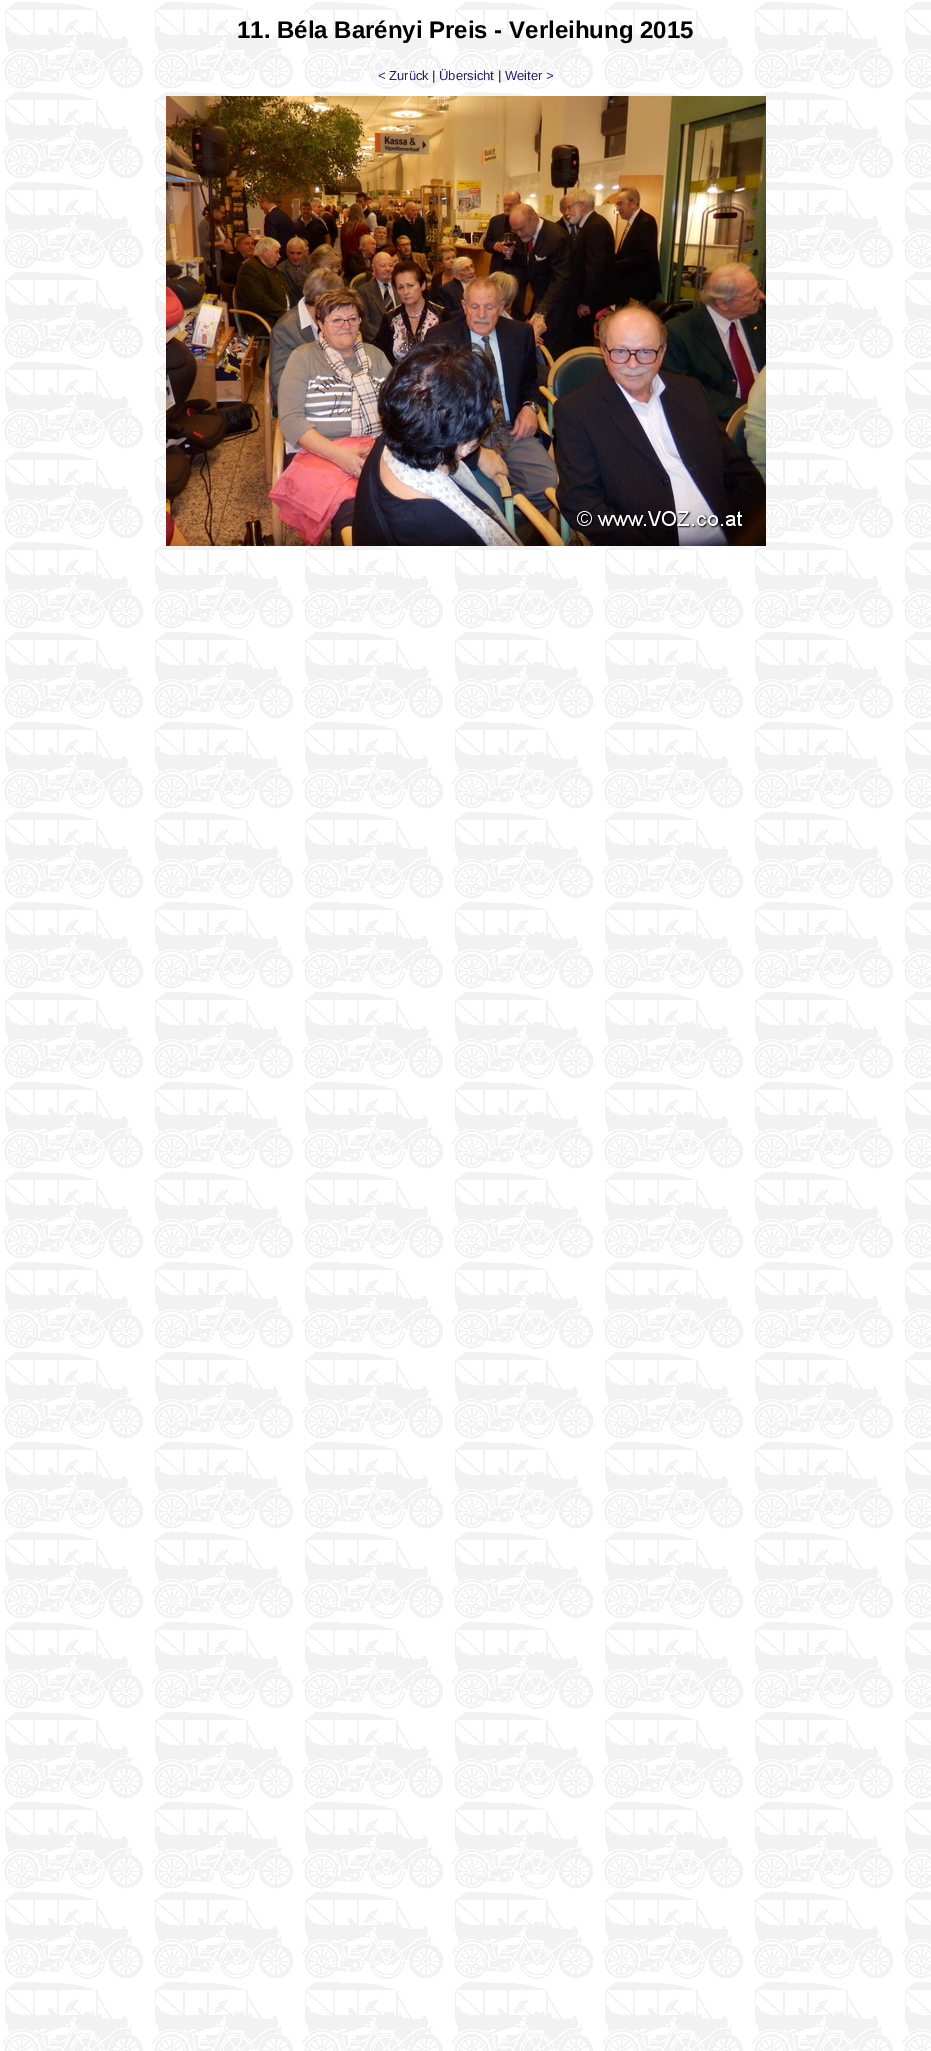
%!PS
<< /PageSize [931 2051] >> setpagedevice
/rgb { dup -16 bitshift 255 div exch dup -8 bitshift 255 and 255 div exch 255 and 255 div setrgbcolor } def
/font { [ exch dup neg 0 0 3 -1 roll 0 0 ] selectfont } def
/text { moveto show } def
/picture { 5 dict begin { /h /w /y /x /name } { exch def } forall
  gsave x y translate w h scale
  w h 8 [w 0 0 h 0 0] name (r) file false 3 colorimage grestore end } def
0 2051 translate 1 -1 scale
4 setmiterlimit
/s1 { /LiberationSans-Bold 24 font 16#000000 rgb } def
/s2 { /LiberationSans-Regular 13 font 16#222266 rgb } def
/s3 { /LiberationSans-Regular 13 font 16#000000 rgb } def
16#FFFFFF rgb
0 0 931 2051 rectfill
(pic1.raw) 2 2 929 2049 picture
s1
(11. Béla Barényi Preis - Verleihung 2015) 237 38 text
s2
(< Zurück) 378 80 text
s3
(|) 432 80 text
s2
(Übersicht) 439 80 text
s3
(|) 498 80 text
s2
(Weiter >) 505 80 text
(pic2.raw) 166 96 600 450 picture
showpage
